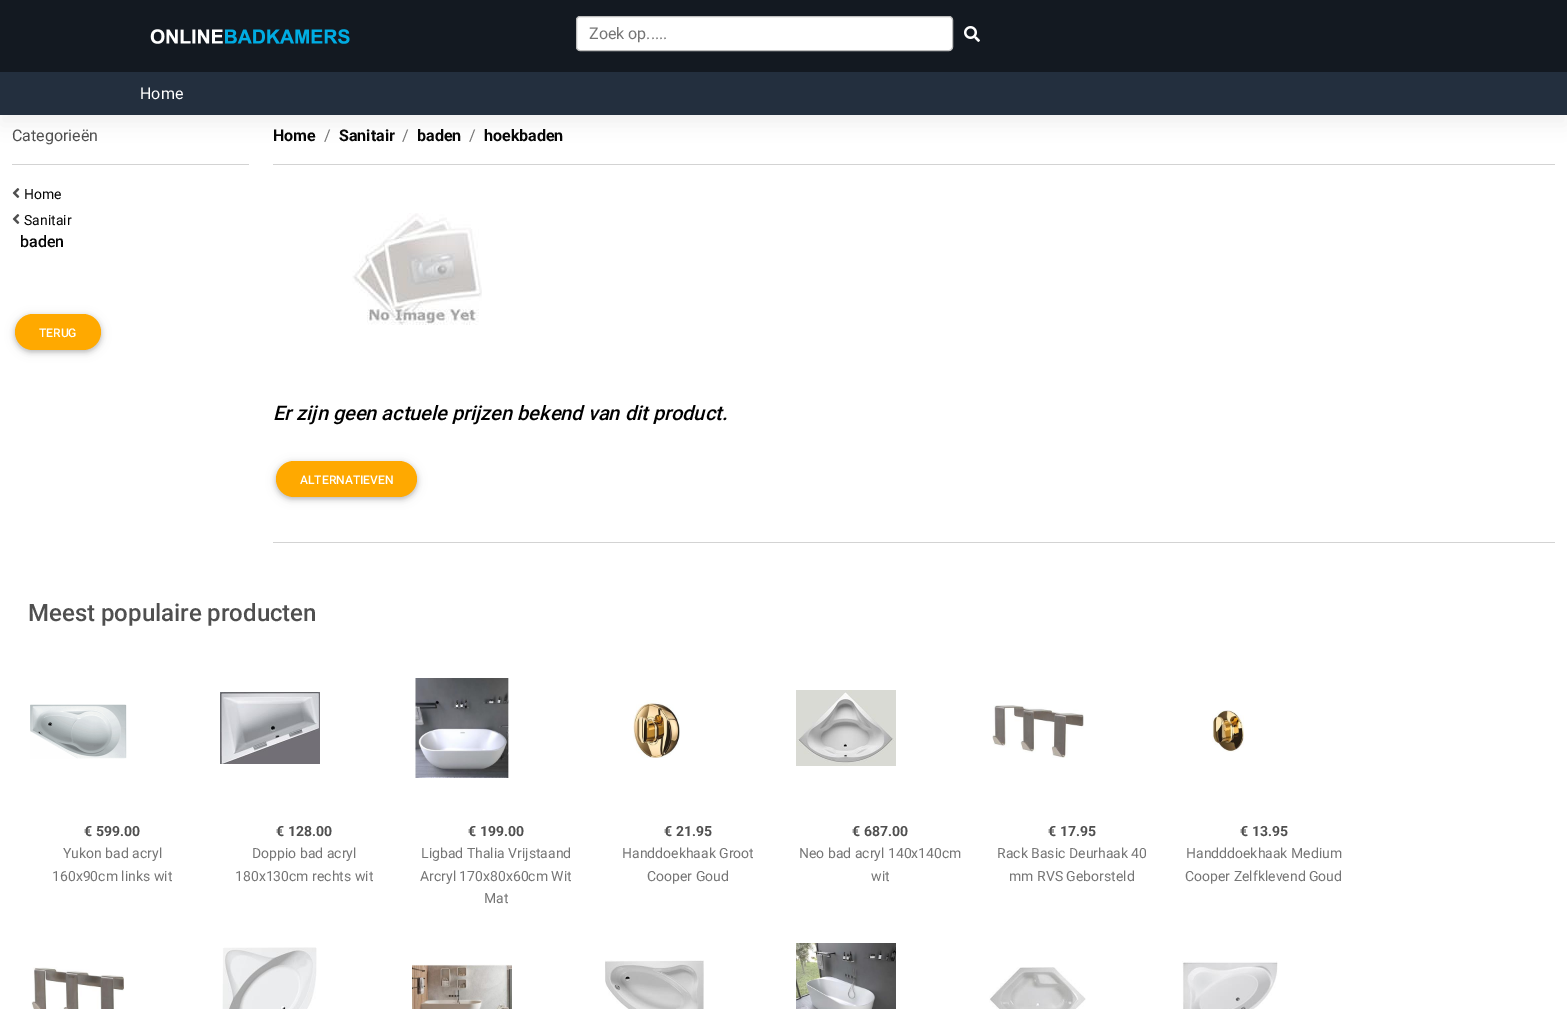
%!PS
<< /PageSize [1567 1009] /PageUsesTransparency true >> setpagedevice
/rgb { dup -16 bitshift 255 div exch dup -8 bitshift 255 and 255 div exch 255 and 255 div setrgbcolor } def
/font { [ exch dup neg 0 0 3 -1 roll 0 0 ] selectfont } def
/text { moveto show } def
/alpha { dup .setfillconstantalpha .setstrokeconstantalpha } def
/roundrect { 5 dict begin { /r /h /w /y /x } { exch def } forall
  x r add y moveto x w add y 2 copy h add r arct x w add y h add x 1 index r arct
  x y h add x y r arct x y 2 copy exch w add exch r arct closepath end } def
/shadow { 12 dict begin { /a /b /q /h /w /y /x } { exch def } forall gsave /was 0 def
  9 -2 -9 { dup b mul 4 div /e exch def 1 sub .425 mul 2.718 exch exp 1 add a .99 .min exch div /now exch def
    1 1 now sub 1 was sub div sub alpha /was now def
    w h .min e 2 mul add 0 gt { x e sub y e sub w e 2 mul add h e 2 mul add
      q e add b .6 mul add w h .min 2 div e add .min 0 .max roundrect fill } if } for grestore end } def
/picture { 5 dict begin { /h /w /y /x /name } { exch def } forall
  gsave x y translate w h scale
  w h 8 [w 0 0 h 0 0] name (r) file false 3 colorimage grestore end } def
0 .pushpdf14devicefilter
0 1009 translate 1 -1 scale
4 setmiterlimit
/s1 { /Roboto-Regular 16 font 16#757575 rgb } def
/s2 { /Roboto-Regular 16 font 16#FFFFFF rgb } def
/s3 { /Roboto-Regular 16 font 16#4F4F4F rgb } def
/s4 { /Roboto-Regular 14 font 16#060606 rgb } def
/s5 { /Roboto-Medium 16 font 16#060606 rgb } def
/s6 { /Roboto-Medium 12 font 16#FFFFFF rgb } def
/s7 { /Roboto-Bold 16 font 16#060606 rgb } def
/s8 { /Roboto-MediumItalic 20 font 16#000000 rgb } def
/s9 { /Roboto-Medium 24 font 16#4F4F4F rgb } def
/s10 { /Roboto-Bold 14 font 16#4F4F4F rgb } def
/s11 { /Roboto-Regular 14 font 16#757575 rgb } def
16#FFFFFF rgb
0 0 1567 1009 rectfill
16#131921 rgb
0 0 1567 72 rectfill
(pic1.raw) 150 29 200 15 picture
16#FFFFFF rgb
576.5 16.5 376 34 3.5 roundrect gsave fill grestore
16#BDBDBD rgb
stroke
s1
(Zoek op.....) 589 39 text
(pic2.raw) 964 26 16 16 picture
16#000000 rgb
0 82 1567 43 0 10 0.05 shadow
16#232F3E rgb
0 72 1567 43 rectfill
s2
(Home) 140 99 text
s3
(Categorieën) 12 141 text
16#D3D3D3 rgb
12 164 237 1 rectfill
(pic3.raw) 12 188 8 10 picture
s4
(Home) 24 199 text
(pic3.raw) 12 214 8 10 picture
(Sanitair) 24 225 text
s5
(baden) 20 247 text
16#000000 rgb
15 316 86 36 18 5 0.1 shadow
15 316 86 36 18 2.5 0.2 shadow
16#FFA900 rgb
15 314 86 36 18 roundrect fill
s6
(TERUG) 39 337 text
s7
(Home) 273 141 text
s1
(/) 324 141 text
s7
(Sanitair) 339 141 text
s1
(/) 402 141 text
s7
(baden) 417 141 text
s1
(/) 469 141 text
s7
(hoekbaden) 484 141 text
16#D3D3D3 rgb
273 164 1282 1 rectfill
(pic4.raw) 352 213 130 112 picture
s8
(Er zijn geen actuele prijzen bekend van dit product.) 273 420 text
276 463 141 36 18 5 0.1 shadow
276 463 141 36 18 2.5 0.2 shadow
16#FFA900 rgb
276 461 141 36 18 roundrect fill
s6
(ALTERNATIEVEN) 300 484 text
16#D3D3D3 rgb
273 542 1282 1 rectfill
s9
(Meest populaire producten) 28 621 text
(pic5.raw) 30 704 97 55 picture
s10
(€ 599.00) 84 836 text
s11
(Yukon bad acryl) 63 858 text
(160x90cm links wit) 52 881 text
(pic6.raw) 220 692 100 72 picture
s10
(€ 128.00) 276 836 text
s11
(Doppio bad acryl) 252 858 text
(180x130cm rechts wit) 235 881 text
(pic7.raw) 415 678 94 100 picture
s10
(€ 199.00) 468 836 text
s11
(Ligbad Thalia Vrijstaand) 421 858 text
(Arcryl 170x80x60cm Wit) 420 881 text
(Mat) 484 903 text
(pic8.raw) 633 700 47 58 picture
s10
(€ 21.95) 664 836 text
s11
(Handdoekhaak Groot) 622 858 text
(Cooper Goud) 647 881 text
(pic9.raw) 796 690 100 76 picture
s10
(€ 687.00) 852 836 text
s11
(Neo bad acryl 140x140cm) 799 858 text
(wit) 871 881 text
(pic10.raw) 992 705 92 53 picture
s10
(€ 17.95) 1048 836 text
s11
(Rack Basic Deurhaak 40) 997 858 text
(mm RVS Geborsteld) 1009 881 text
(pic11.raw) 1212 710 32 42 picture
s10
(€ 13.95) 1240 836 text
s11
(Handddoekhaak Medium) 1186 858 text
(Cooper Zelfklevend Goud) 1185 881 text
(pic12.raw) 31 967 93 42 picture
(pic13.raw) 222 947 95 62 picture
(pic14.raw) 412 964 100 45 picture
(pic15.raw) 605 960 99 49 picture
(pic16.raw) 796 943 100 66 picture
(pic17.raw) 989 967 97 42 picture
(pic18.raw) 1182 961 96 48 picture
.poppdf14devicefilter showpage
